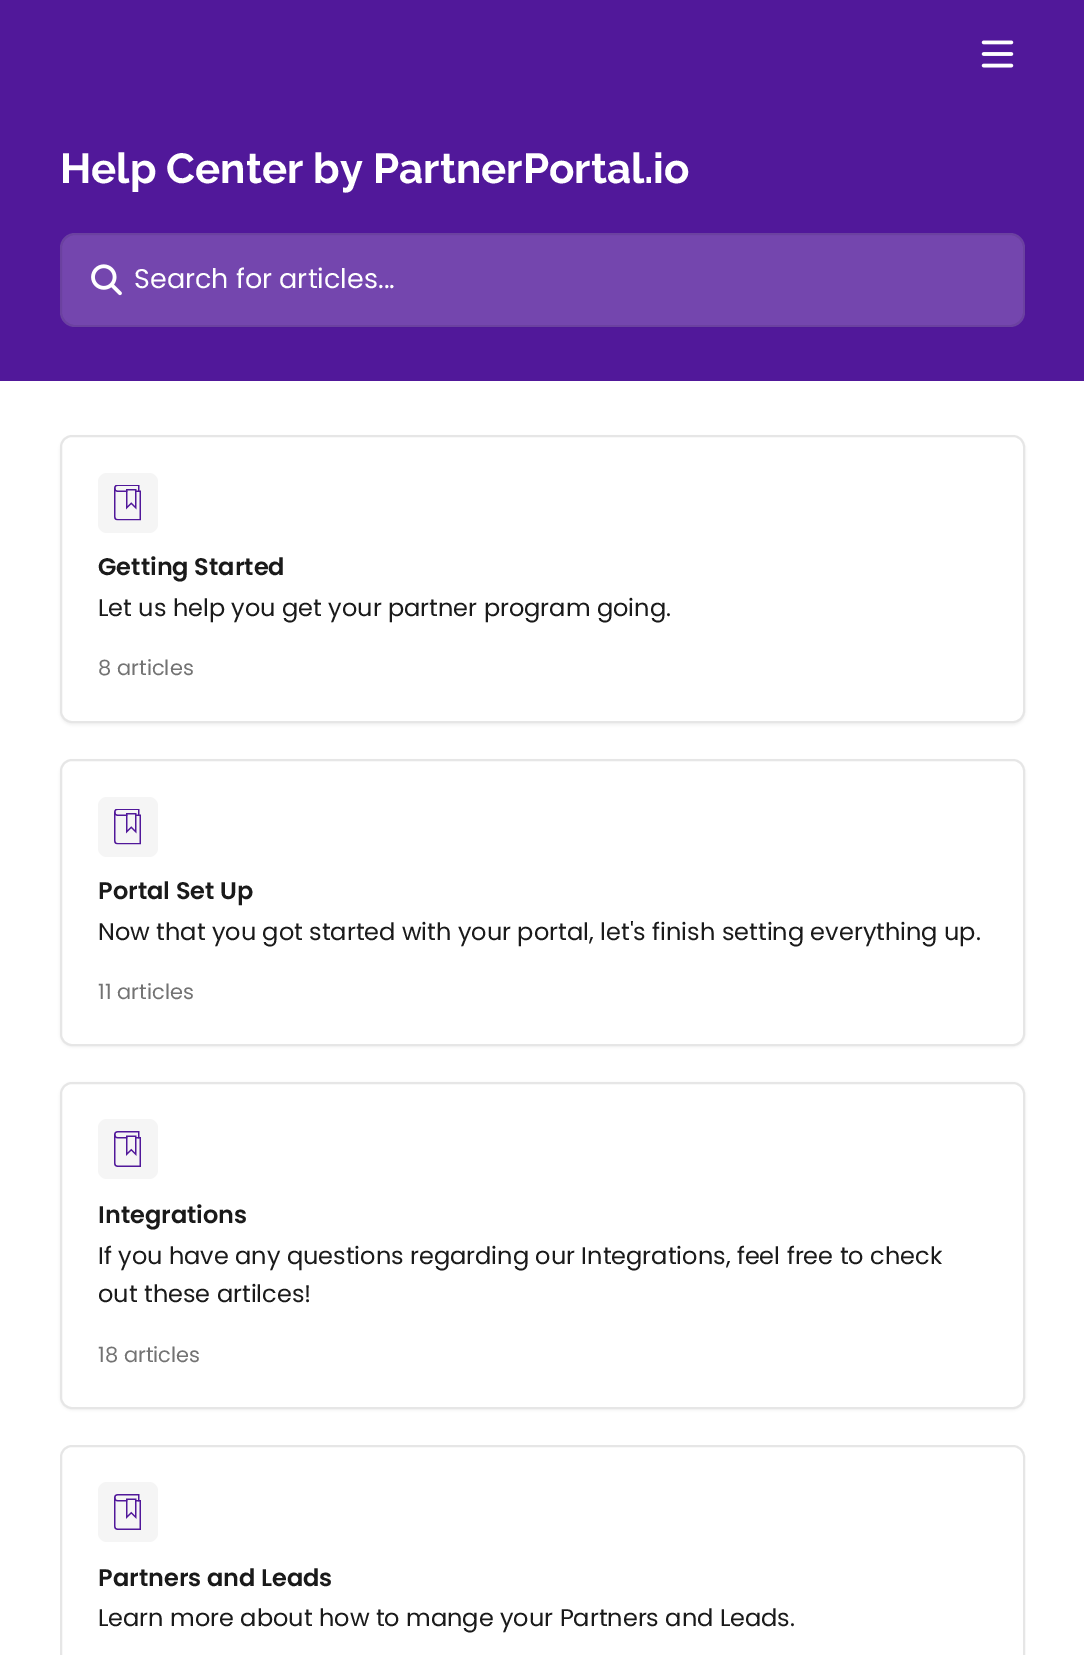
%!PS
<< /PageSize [1084 1655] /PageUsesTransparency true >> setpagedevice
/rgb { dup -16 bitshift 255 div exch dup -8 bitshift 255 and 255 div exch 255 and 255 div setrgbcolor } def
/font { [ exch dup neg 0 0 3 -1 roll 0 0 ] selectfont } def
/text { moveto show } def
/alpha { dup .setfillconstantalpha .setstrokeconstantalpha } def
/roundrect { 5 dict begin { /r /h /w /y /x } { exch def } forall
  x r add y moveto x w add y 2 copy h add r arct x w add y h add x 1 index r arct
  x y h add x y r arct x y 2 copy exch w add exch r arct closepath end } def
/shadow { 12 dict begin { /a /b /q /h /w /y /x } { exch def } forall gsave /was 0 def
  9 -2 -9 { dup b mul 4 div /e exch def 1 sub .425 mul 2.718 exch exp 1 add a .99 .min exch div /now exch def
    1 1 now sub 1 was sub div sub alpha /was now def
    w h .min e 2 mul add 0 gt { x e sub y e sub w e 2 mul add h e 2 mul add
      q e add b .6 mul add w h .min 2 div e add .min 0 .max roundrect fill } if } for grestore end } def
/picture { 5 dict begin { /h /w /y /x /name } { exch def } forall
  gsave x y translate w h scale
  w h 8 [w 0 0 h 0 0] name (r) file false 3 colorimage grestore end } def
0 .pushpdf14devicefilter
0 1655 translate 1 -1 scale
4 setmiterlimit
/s1 { /Raleway-Bold 42 font 16#FFFFFF rgb } def
/s2 { /Poppins-Regular 27 font 16#FFFFFF rgb } def
/s3 { /Poppins-SemiBold 24 font 16#1A1A1A rgb } def
/s4 { /Poppins-Regular 24 font 16#1A1A1A rgb } def
/s5 { /Poppins-Regular 21 font 16#737373 rgb } def
16#FFFFFF rgb
0 0 1084 1655 rectfill
16#51189A rgb
0 0 1084 381 rectfill
(pic1.raw) 981 40 33 28 picture
s1
(Help Center by PartnerPortal.io) 60 183 text
0.2 alpha
60 233 965 94 15 roundrect fill
0.08 alpha
16#000000 rgb
2 setlinewidth
61 234 963 92 14 roundrect stroke
1 alpha
(pic2.raw) 91 264 31 32 picture
s2
(Search for articles...) 134 288 text
16#000000 rgb
60 437 965 288 12 1.5 0.05 shadow
16#FFFFFF rgb
61 436 963 286 11 roundrect gsave fill grestore
16#E6E6E6 rgb
stroke
16#F5F5F5 rgb
98 473 60 60 9 roundrect fill
(pic3.raw) 114 485 27 36 picture
s3
(Getting Started) 98 575 text
s4
(Let us help you get your partner program going.) 98 616 text
s5
(8 articles) 98 675 text
16#000000 rgb
60 761 965 286 12 1.5 0.05 shadow
16#FFFFFF rgb
61 760 963 285 11 roundrect gsave fill grestore
16#E6E6E6 rgb
stroke
16#F5F5F5 rgb
98 797 60 60 9 roundrect fill
(pic4.raw) 114 809 27 36 picture
s3
(Portal Set Up) 98 899 text
s4
(Now that you got started with your portal, let's finish setting everything up.) 98 940 text
s5
(11 articles) 98 999 text
16#000000 rgb
60 1083 965 327 12 1.5 0.05 shadow
16#FFFFFF rgb
61 1083 963 325 11 roundrect gsave fill grestore
16#E6E6E6 rgb
stroke
16#F5F5F5 rgb
98 1119 60 60 9 roundrect fill
(pic5.raw) 114 1131 27 36 picture
s3
(Integrations) 98 1223 text
s4
(If you have any questions regarding our Integrations, feel free to check) 98 1264 text
(out these artilces!) 98 1302 text
s5
(18 articles) 98 1362 text
16#E6E6E6 rgb
61 1446 963 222 11 roundrect stroke
16#F5F5F5 rgb
98 1482 60 60 9 roundrect fill
(pic5.raw) 114 1494 27 36 picture
s3
(Partners and Leads) 98 1586 text
s4
(Learn more about how to mange your Partners and Leads.) 98 1626 text
.poppdf14devicefilter showpage
